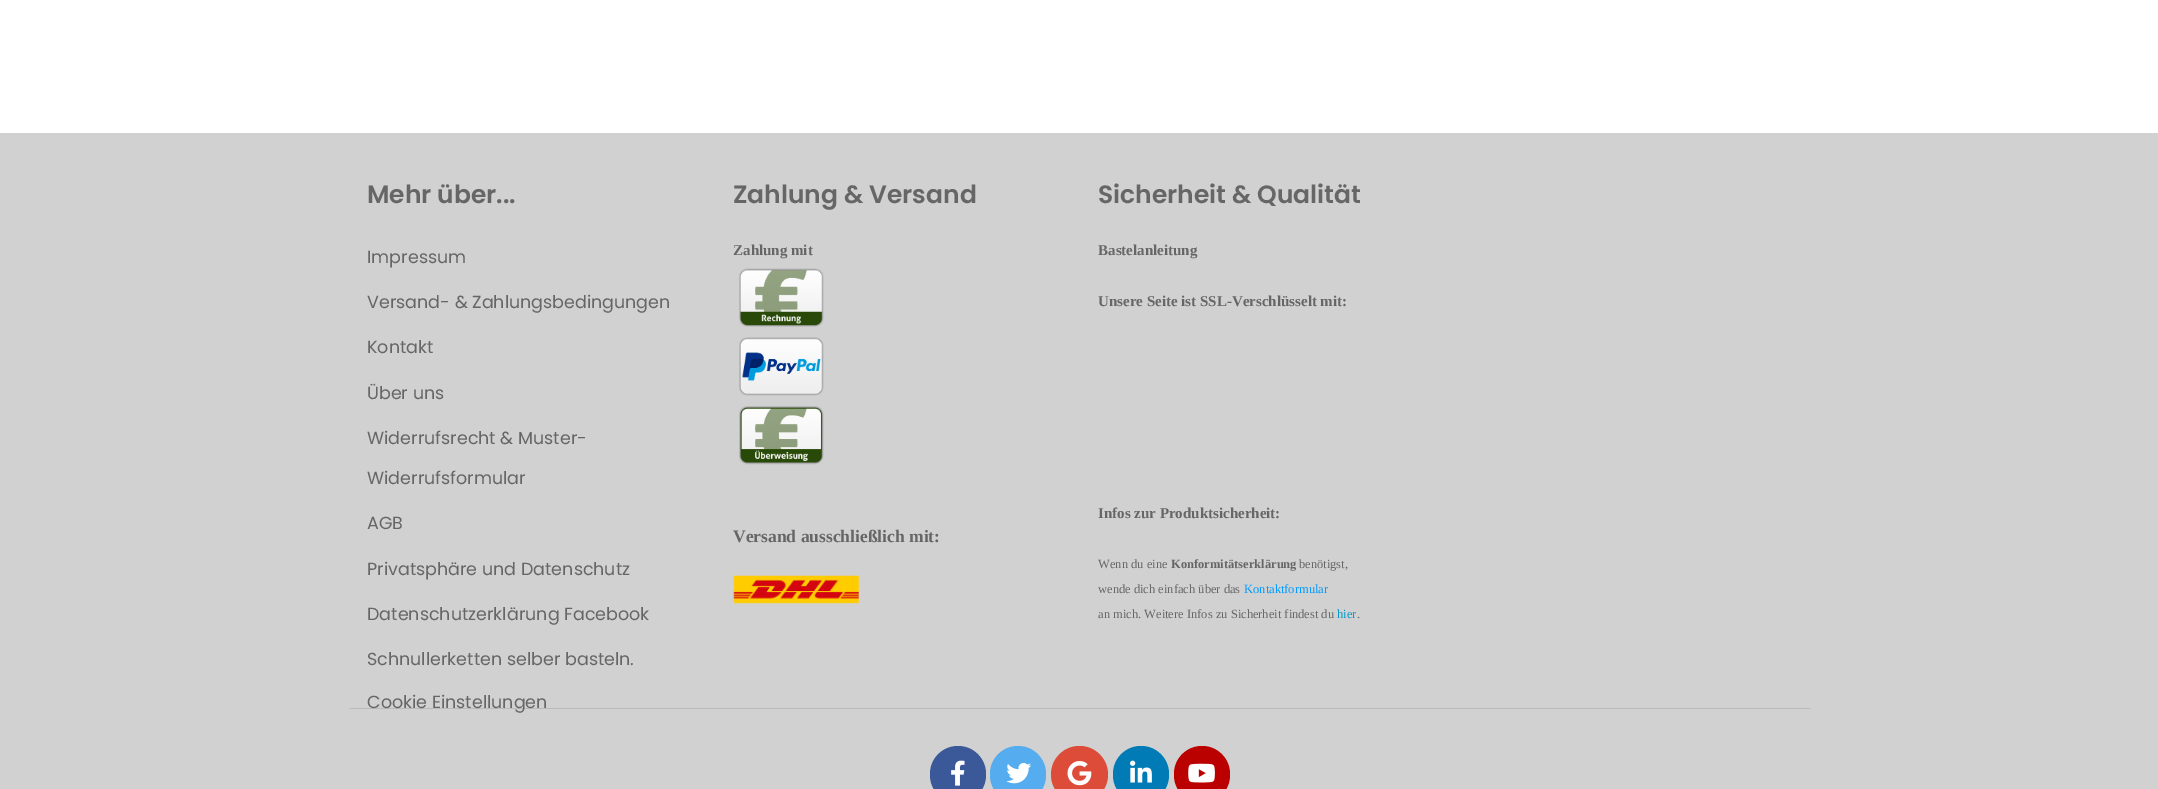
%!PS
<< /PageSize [2158 789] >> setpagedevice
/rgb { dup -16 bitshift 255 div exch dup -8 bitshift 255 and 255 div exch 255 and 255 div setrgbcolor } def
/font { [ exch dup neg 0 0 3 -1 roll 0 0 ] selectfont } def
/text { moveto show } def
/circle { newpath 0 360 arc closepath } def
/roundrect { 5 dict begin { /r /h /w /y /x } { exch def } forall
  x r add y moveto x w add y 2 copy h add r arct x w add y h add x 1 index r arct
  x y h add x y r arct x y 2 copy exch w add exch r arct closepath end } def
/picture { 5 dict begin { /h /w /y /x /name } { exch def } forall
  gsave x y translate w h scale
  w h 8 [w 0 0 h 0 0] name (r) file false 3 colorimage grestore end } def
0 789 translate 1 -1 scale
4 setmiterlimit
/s1 { /Poppins-SemiBold 25 font 16#666666 rgb } def
/s2 { /Poppins-Regular 17.5 font 16#666666 rgb } def
/s3 { /LiberationSerif-Bold 15 font 16#666666 rgb } def
/s4 { /LiberationSerif-Bold 17.5 font 16#666666 rgb } def
/s5 { /LiberationSerif-Regular 12.5 font 16#666666 rgb } def
/s6 { /LiberationSerif-Bold 12.5 font 16#666666 rgb } def
/s7 { /LiberationSerif-Regular 12.5 font 16#0099FF rgb } def
/s8 { /LiberationSerif-Regular 12.5 font 16#0099CC rgb } def
16#FFFFFF rgb
0 0 2158 789 rectfill
16#D1D1D1 rgb
0 133 2158 656 rectfill
16#BBBBBB rgb
349 708 1462 1 rectfill
s1
(Mehr über...) 367 203 text
s2
(Impressum) 367 263 text
(Versand- & Zahlungsbedingungen) 367 308 text
(Kontakt) 367 353 text
(Über uns) 367 399 text
(Widerrufsrecht & Muster-) 367 444 text
(Widerrufsformular) 367 484 text
(AGB) 367 529 text
(Privatsphäre und Datenschutz) 367 575 text
(Datenschutzerklärung Facebook) 367 620 text
(Schnullerketten selber basteln.) 367 665 text
(Cookie Einstellungen) 367 708 text
s1
(Zahlung & Versand) 733 203 text
s3
(Zahlung mit) 733 255 text
(pic1.raw) 739 268 85 59 picture
(pic2.raw) 739 337 85 59 picture
(pic3.raw) 739 406 85 59 picture
s4
(Versand ausschließlich mit:) 733 542 text
(pic4.raw) 733 575 126 29 picture
s1
(Sicherheit & Qualität) 1098 203 text
s3
(Bastelanleitung) 1098 255 text
(Unsere Seite ist SSL-Verschlüsselt mit:) 1098 306 text
(Infos zur Produktsicherheit:) 1098 518 text
s5
(Wenn du eine) 1098 568 text
s6
(Konformitätserklärung) 1171 568 text
s5
(benötigst,) 1299 568 text
(wende dich einfach über das) 1098 593 text
s7
(Kontaktformular) 1244 593 text
s5
(an mich. Weitere Infos zu Sicherheit findest du) 1098 618 text
s8
(hier) 1337 618 text
s5
(.) 1357 618 text
16#3B5998 rgb
930 746 56 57 28 roundrect fill
(pic5.raw) 951 760 14 26 picture
16#55ACEE rgb
990 746 56 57 28 roundrect fill
(pic6.raw) 1006 763 26 21 picture
16#DD4B39 rgb
1079.5 774.5 28.5 circle fill
(pic7.raw) 1067 761 25 25 picture
16#007BB5 rgb
1113 746 56 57 28 roundrect fill
(pic8.raw) 1130 760 22 23 picture
16#BB0000 rgb
1174 746 56 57 28 roundrect fill
(pic9.raw) 1188 763 27 20 picture
showpage
